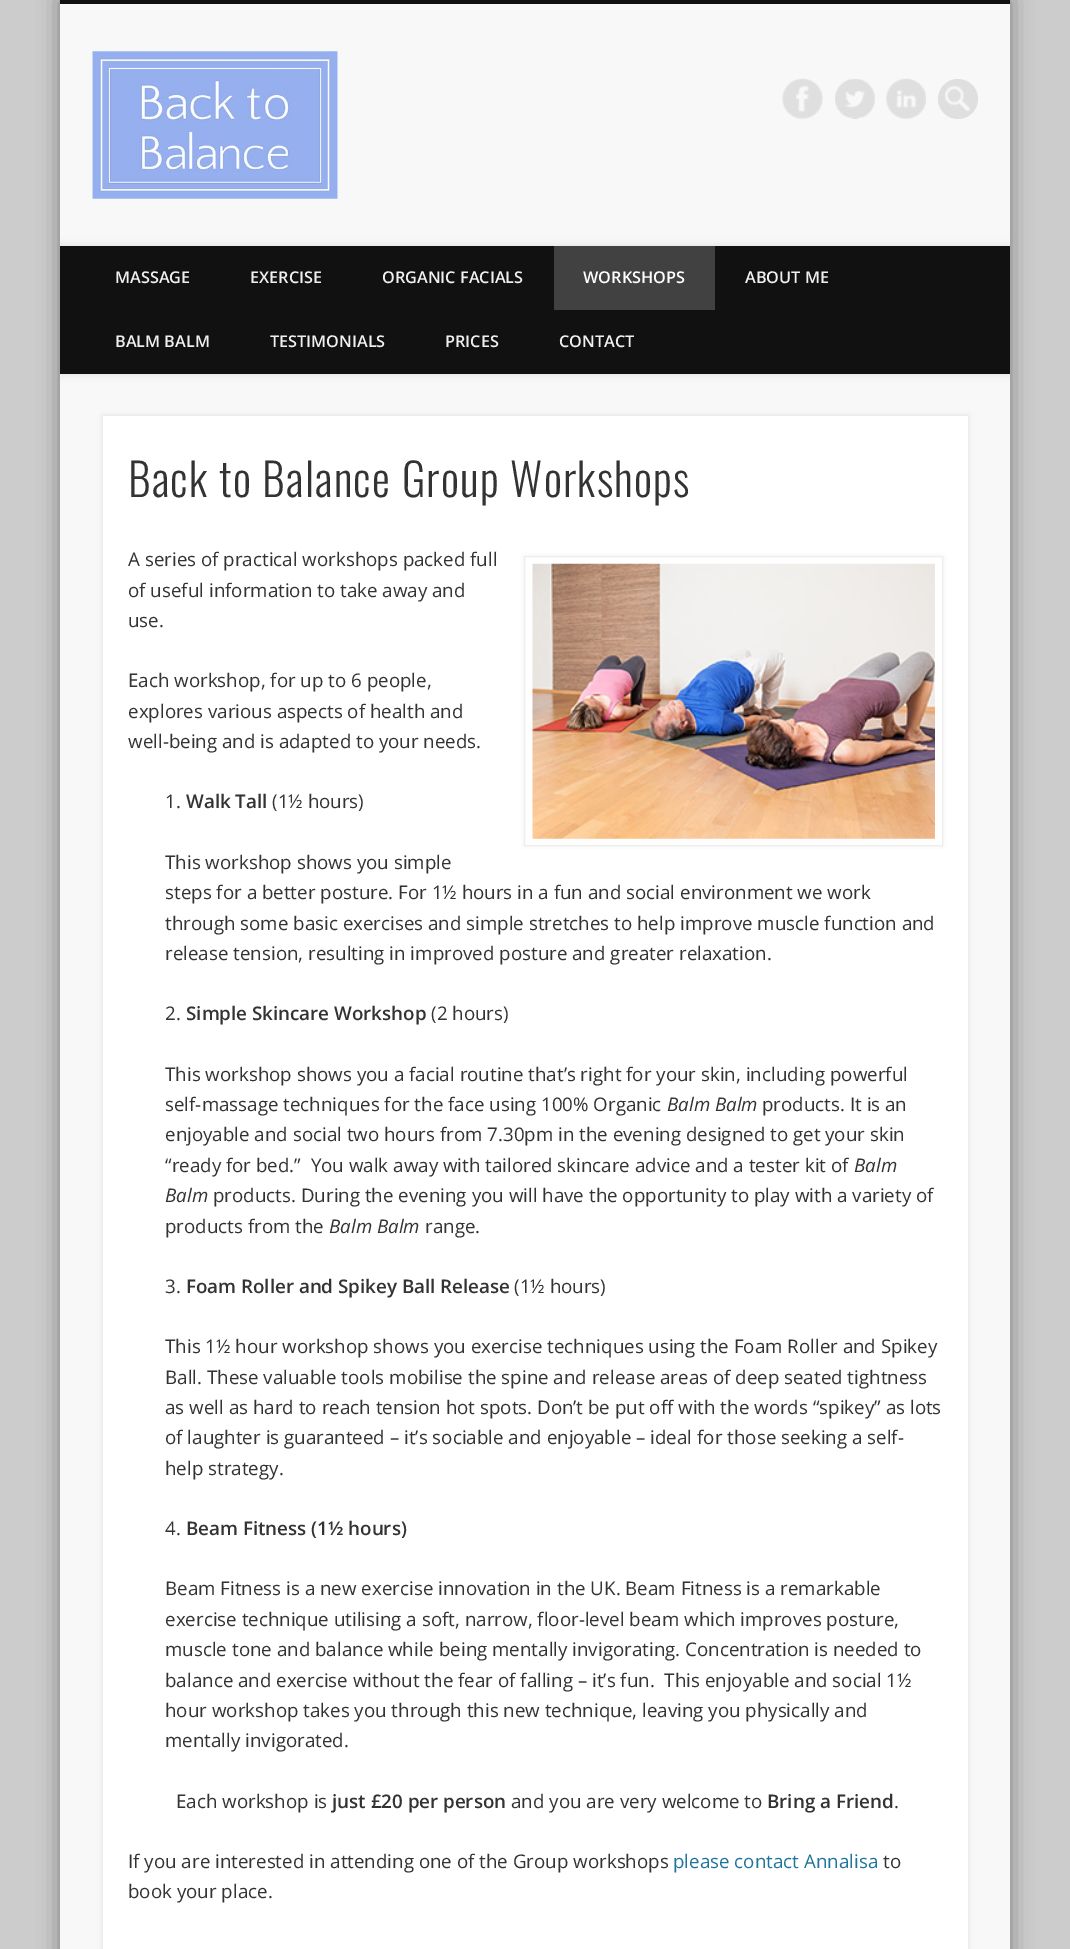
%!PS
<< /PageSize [1070 1949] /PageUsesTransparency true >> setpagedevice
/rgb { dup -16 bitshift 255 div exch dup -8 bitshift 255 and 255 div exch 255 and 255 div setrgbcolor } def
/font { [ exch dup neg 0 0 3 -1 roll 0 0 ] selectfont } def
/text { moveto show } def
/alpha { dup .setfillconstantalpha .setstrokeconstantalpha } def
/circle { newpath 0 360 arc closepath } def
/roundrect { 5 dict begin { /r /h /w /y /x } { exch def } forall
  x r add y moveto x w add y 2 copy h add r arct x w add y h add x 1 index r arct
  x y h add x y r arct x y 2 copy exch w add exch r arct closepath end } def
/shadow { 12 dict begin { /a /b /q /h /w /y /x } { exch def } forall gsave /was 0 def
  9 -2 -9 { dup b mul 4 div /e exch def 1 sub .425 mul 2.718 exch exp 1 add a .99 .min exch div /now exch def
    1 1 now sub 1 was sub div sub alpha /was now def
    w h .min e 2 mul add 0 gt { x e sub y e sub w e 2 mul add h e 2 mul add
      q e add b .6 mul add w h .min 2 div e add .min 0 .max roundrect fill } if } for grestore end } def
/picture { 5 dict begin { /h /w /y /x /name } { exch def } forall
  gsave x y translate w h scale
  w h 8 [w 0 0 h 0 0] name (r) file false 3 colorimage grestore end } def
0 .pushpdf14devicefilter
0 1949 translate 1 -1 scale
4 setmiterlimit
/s1 { /OpenSans-SemiBold 16.25 font 16#F0F0F0 rgb } def
/s2 { /OpenSans-SemiBold 16.25 font 16#FFFFFF rgb } def
/s3 { /OpenSans-Regular 18.75 font 16#333333 rgb } def
/s4 { /OpenSans-SemiBold 18.75 font 16#333333 rgb } def
/s5 { /OpenSans-Italic 18.75 font 16#333333 rgb } def
/s6 { /OpenSans-Regular 18.75 font 16#21759B rgb } def
16#CCCCCC rgb
0 0 1070 1949 rectfill
16#000000 rgb
60 0 950 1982 0 11 0.4 shadow
16#F8F8F8 rgb
60 4 950 1945 rectfill
16#111111 rgb
60 0 950 4 rectfill
(pic1.raw) 92 51 246 148 picture
(pic2.raw) 782 78 41 41 picture
(pic3.raw) 835 79 40 40 picture
(pic4.raw) 886 78 40 41 picture
16#DFDFDF rgb
958 99 20 circle fill
(pic5.raw) 945 86 25 25 picture
gsave
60 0 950 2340 rectclip
16#000000 rgb
60 246 950 128 0 4.5 0.1 shadow
grestore
16#111111 rgb
60 246 950 128 rectfill
s1
(MASSAGE) 115 283 text
(EXERCISE) 250 283 text
(ORGANIC FACIALS) 382 283 text
16#414141 rgb
554 246 161 64 rectfill
s2
(WORKSHOPS) 583 283 text
s1
(ABOUT ME) 745 283 text
(BALM BALM) 115 347 text
(TESTIMONIALS) 270 347 text
(PRICES) 445 347 text
(CONTACT) 559 347 text
16#000000 rgb
103 416 865 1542 0 3 0.1 shadow
16#FFFFFF rgb
103 416 865 1533 rectfill
/Oswald-Light 45 font
16#333333 rgb
128 497 moveto 1.25 0 (Back to Balance Group Workshops) ashow
s3
(A series of practical workshops packed full) 128 566 text
16#EEEEEE rgb
524 556 419 290 0 2 1 shadow
16#FFFFFF rgb
524.5 556.5 moveto 942.5 556.5 lineto 942.5 845.5 lineto 524.5 845.5 lineto closepath gsave fill grestore
16#EEEEEE rgb
stroke
(pic6.raw) 532 563 403 276 picture
s3
(of useful information to take away and) 128 597 text
(use.) 128 627 text
(Each workshop, for up to 6 people,) 128 687 text
(explores various aspects of health and) 128 718 text
(well-being and is adapted to your needs.) 128 748 text
(1.) 165 808 text
s4
(Walk Tall) 186 808 text
s3
(\(1½ hours\)) 272 808 text
(This workshop shows you simple) 165 869 text
(steps for a better posture. For 1½ hours in a fun and social environment we work) 165 899 text
(through some basic exercises and simple stretches to help improve muscle function and) 165 930 text
(release tension, resulting in improved posture and greater relaxation.) 165 960 text
(2.) 165 1020 text
s4
(Simple Skincare Workshop) 186 1020 text
s3
(\(2 hours\)) 431 1020 text
(This workshop shows you a facial routine that’s right for your skin, including powerful) 165 1081 text
(self-massage techniques for the face using 100% Organic) 165 1111 text
s5
(Balm Balm) 667 1111 text
s3
(products. It is an) 762 1111 text
(enjoyable and social two hours from 7.30pm in the evening designed to get your skin) 165 1141 text
(“ready for bed.”  You walk away with tailored skincare advice and a tester kit of) 165 1172 text
s5
(Balm) 854 1172 text
(Balm) 165 1202 text
s3
(products. During the evening you will have the opportunity to play with a variety of) 213 1202 text
(products from the) 165 1233 text
s5
(Balm Balm) 329 1233 text
s3
(range.) 425 1233 text
(3.) 165 1293 text
s4
(Foam Roller and Spikey Ball Release) 186 1293 text
s3
(\(1½ hours\)) 514 1293 text
(This 1½ hour workshop shows you exercise techniques using the Foam Roller and Spikey) 165 1353 text
(Ball. These valuable tools mobilise the spine and release areas of deep seated tightness) 165 1384 text
(as well as hard to reach tension hot spots. Don’t be put off with the words “spikey” as lots) 165 1414 text
(of laughter is guaranteed – it’s sociable and enjoyable – ideal for those seeking a self-) 165 1444 text
(help strategy.) 165 1475 text
(4.) 165 1535 text
s4
(Beam Fitness \(1½ hours\)) 186 1535 text
s3
(Beam Fitness is a new exercise innovation in the UK. Beam Fitness is a remarkable) 165 1595 text
(exercise technique utilising a soft, narrow, floor-level beam which improves posture,) 165 1626 text
(muscle tone and balance while being mentally invigorating. Concentration is needed to) 165 1656 text
(balance and exercise without the fear of falling – it’s fun.  This enjoyable and social 1½) 165 1687 text
(hour workshop takes you through this new technique, leaving you physically and) 165 1717 text
(mentally invigorated.) 165 1747 text
(Each workshop is) 176 1808 text
s4
(just £20 per person) 332 1808 text
s3
(and you are very welcome to) 511 1808 text
s4
(Bring a Friend) 767 1808 text
s3
(.) 894 1808 text
(If you are interested in attending one of the Group workshops) 128 1868 text
s6
(please contact Annalisa) 673 1868 text
s3
(to) 883 1868 text
(book your place.) 128 1898 text
.poppdf14devicefilter showpage
